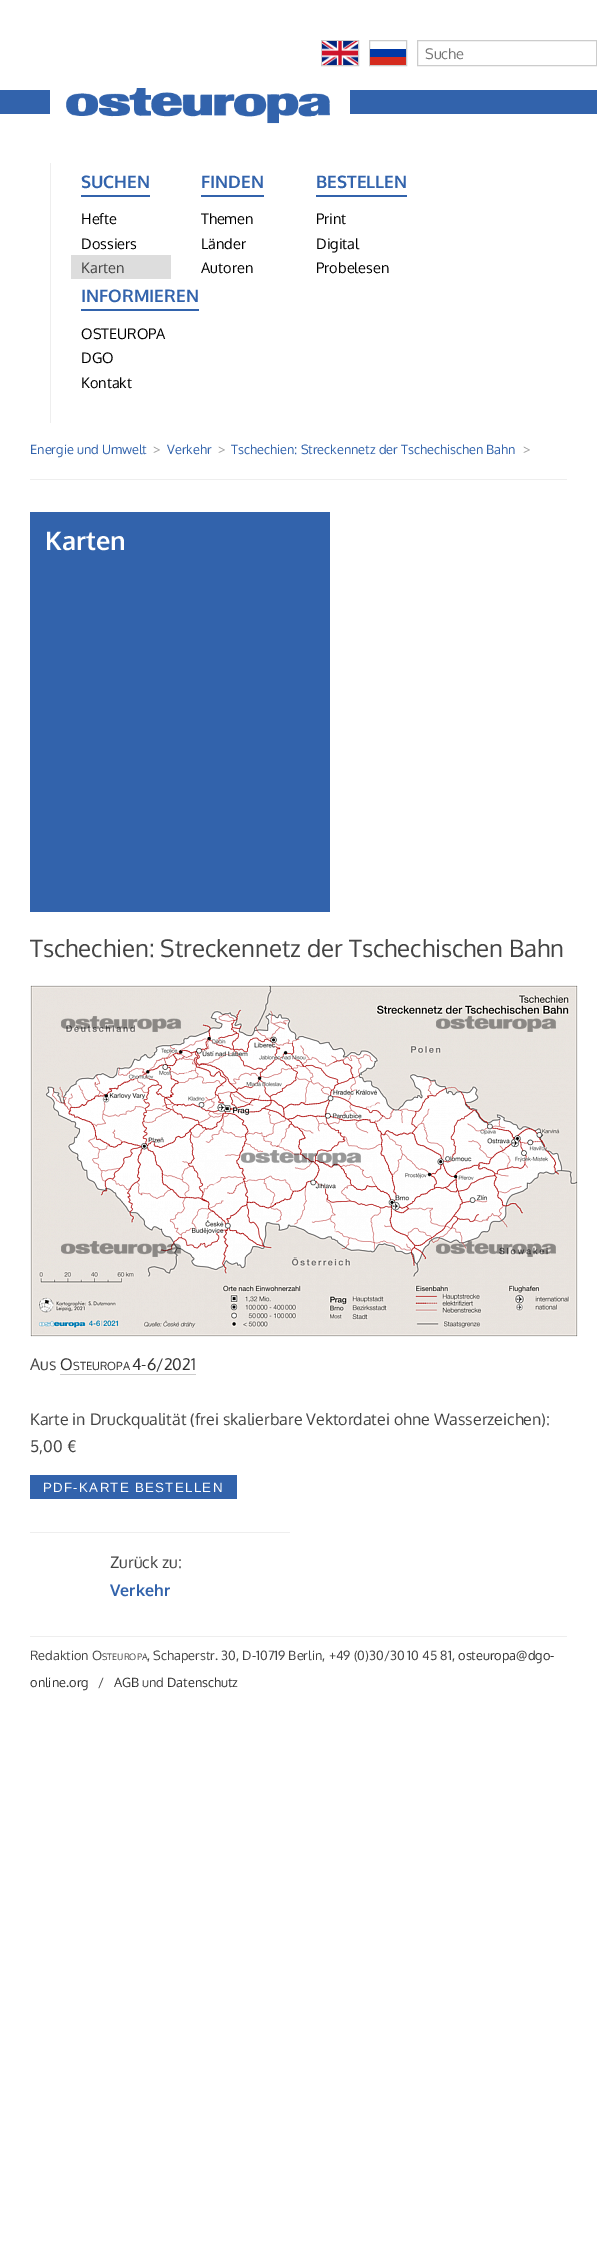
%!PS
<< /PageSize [597 2262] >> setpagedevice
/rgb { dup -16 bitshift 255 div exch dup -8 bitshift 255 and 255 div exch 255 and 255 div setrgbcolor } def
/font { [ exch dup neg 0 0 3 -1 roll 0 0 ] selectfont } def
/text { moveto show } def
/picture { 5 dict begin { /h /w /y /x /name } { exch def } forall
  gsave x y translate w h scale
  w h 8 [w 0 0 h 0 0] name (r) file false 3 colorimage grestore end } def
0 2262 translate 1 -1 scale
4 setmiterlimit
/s1 { /Oxygen-Regular 14.5 font 16#757575 rgb } def
/s2 { /Oxygen-Bold 17.25 font 16#3263AC rgb } def
/s3 { /Oxygen-Regular 14.5 font 16#000000 rgb } def
/s4 { /Oxygen-Regular 14.5 font 16#444444 rgb } def
/s5 { /Oxygen-Regular 12.8 font 16#3263AC rgb } def
/s6 { /Oxygen-Regular 12.8 font 16#999999 rgb } def
/s7 { /Oxygen-Bold 25.5 font 16#FFFFFF rgb } def
/s8 { /Oxygen-Regular 24 font 16#444444 rgb } def
/s9 { /Oxygen-Regular 16 font 16#444444 rgb } def
/s10 { /Oxygen-Regular 16 font 16#333333 rgb } def
/s11 { /Oxygen-Regular 11.25 font 16#333333 rgb } def
/s12 { /Oxygen-Bold 16 font 16#3263AC rgb } def
/s13 { /Oxygen-Regular 12.8 font 16#444444 rgb } def
/s14 { /Oxygen-Regular 9 font 16#444444 rgb } def
/s15 { /Oxygen-Regular 12.8 font 16#333333 rgb } def
16#FFFFFF rgb
0 0 597 2262 rectfill
16#CCCCCC rgb
321.5 40.5 37 25 rectstroke
(pic1.raw) 322 41 36 24 picture
369.5 40.5 37 25 rectstroke
(pic2.raw) 370 49 36 16 picture
417.5 40.5 179 25 rectstroke
s1
(Suche) 425 59 text
16#3263AC rgb
0 90 597 24 rectfill
16#FFFFFF rgb
50 90 300 24 rectfill
(pic3.raw) 66 88 264 36 picture
16#EEEEEE rgb
50 163 1 260 rectfill
s2
(SUCHEN) 81 188 text
81 195 69 2 rectfill
s3
(Hefte) 81 224 text
(Dossiers) 81 249 text
16#DDDDDD rgb
71 255 100 24 rectfill
s4
(Karten) 81 273 text
s2
(FINDEN) 201 188 text
201 195 63 2 rectfill
s3
(Themen) 201 224 text
(Länder) 201 249 text
(Autoren) 201 273 text
s2
(BESTELLEN) 316 188 text
316 195 91 2 rectfill
s3
(Print) 316 224 text
(Digital) 316 249 text
(Probelesen) 316 273 text
s2
(INFORMIEREN) 81 302 text
81 309 118 2 rectfill
s3
(OSTEUROPA) 81 339 text
(DGO) 81 363 text
(Kontakt) 81 388 text
s5
(Energie und Umwelt) 30 454 text
s6
(>) 153 454 text
s5
(Verkehr) 167 454 text
s6
(>) 218 454 text
s5
(Tschechien: Streckennetz der Tschechischen Bahn) 231 454 text
s6
(>) 523 454 text
16#EEEEEE rgb
30 479 537 1 rectfill
16#3263AC rgb
30 512 300 400 rectfill
s7
(Karten) 45 550 text
s8
(Tschechien: Streckennetz der Tschechischen Bahn) 30 957 text
(pic4.raw) 30 985 548 352 picture
s9
(Aus) 30 1370 text
s10
(O) 60 1370 text
s11
(STEUROPA) 73 1370 text
16#CCCCCC rgb
60 1374 136 1 rectfill
s10
(4-6/2021) 132 1370 text
s9
(Karte in Druckqualität \(frei skalierbare Vektordatei ohne Wasserzeichen\):) 30 1425 text
(5,00 €) 30 1452 text
16#3263AC rgb
30 1475 207 24 rectfill
/LiberationSans-Regular 13.3 font
16#FFFFFF rgb
43 1492 moveto 1.3 0 (PDF-KARTE BESTELLEN) ashow
16#EEEEEE rgb
30 1532 260 1 rectfill
s9
(Zurück zu:) 110 1568 text
s12
(Verkehr) 110 1596 text
16#EEEEEE rgb
30 1636 537 1 rectfill
s13
(Redaktion O) 30 1660 text
s14
(STEUROPA) 102 1660 text
s13
(, Schaperstr. 30, D-10719 Berlin, +49 \(0\)30/30 10 45 81,) 147 1660 text
s15
(osteuropa@dgo-) 458 1660 text
(online.org) 30 1687 text
s13
(/) 98 1687 text
s15
(AGB) 114 1687 text
s13
(und) 142 1687 text
s15
(Datenschutz) 167 1687 text
showpage
